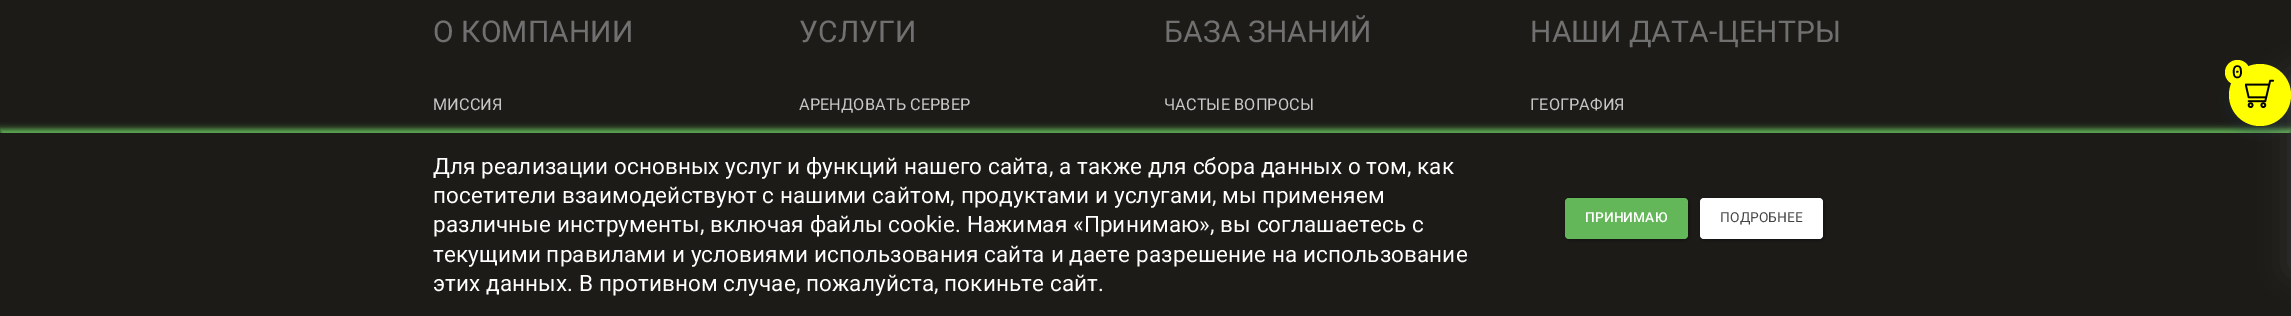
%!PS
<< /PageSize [2291 316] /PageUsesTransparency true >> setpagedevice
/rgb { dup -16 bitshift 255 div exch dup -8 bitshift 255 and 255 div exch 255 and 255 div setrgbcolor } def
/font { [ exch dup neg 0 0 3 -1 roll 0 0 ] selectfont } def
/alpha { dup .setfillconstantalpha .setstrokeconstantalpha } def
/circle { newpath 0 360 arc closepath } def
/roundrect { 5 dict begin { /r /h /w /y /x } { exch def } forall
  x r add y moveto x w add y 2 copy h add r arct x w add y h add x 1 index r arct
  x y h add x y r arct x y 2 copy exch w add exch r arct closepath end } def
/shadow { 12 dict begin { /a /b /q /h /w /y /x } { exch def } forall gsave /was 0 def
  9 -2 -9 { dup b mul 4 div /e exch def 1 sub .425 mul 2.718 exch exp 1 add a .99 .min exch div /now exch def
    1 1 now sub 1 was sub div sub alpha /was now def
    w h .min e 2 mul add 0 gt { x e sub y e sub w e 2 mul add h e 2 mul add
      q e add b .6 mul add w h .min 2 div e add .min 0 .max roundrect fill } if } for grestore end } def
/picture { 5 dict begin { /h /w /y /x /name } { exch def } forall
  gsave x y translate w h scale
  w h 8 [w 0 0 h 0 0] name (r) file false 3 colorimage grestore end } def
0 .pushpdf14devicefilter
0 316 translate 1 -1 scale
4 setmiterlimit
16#1C1B18 rgb
0 0 2291 316 rectfill
/Roboto-Regular 30 font
16#707070 rgb
433 42 moveto 0.12 0 (О КОМПАНИИ) ashow
/Roboto-Regular 16.25 font
16#C7C7C7 rgb
433 110 moveto 0.12 0 (МИССИЯ) ashow
/Roboto-Regular 30 font
16#707070 rgb
799 42 moveto 0.12 0 (УСЛУГИ) ashow
/Roboto-Regular 16.25 font
16#C7C7C7 rgb
799 110 moveto 0.12 0 (АРЕНДОВАТЬ СЕРВЕР) ashow
/Roboto-Regular 30 font
16#707070 rgb
1164 42 moveto 0.12 0 (БАЗА ЗНАНИЙ) ashow
/Roboto-Regular 16.25 font
16#C7C7C7 rgb
1164 110 moveto 0.12 0 (ЧАСТЫЕ ВОПРОСЫ) ashow
/Roboto-Regular 30 font
16#707070 rgb
1530 42 moveto 0.12 0 (НАШИ ДАТА-ЦЕНТРЫ) ashow
/Roboto-Regular 16.25 font
16#C7C7C7 rgb
1530 110 moveto 0.12 0 (ГЕОГРАФИЯ) ashow
16#63B758 rgb
0 129 2291 184 0 3 1 shadow
16#1D1B18 rgb
0 133 2291 183 rectfill
16#223C50 rgb
2226 68 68 67 33.5 6 0.2 shadow
16#969EA6 rgb
2291 74 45 196 0 15 0.2 shadow
16#FFFF00 rgb
2260 95 31 circle fill
2237.5 72.5 12.5 circle fill
/IBMPlexMono-Medium 18 font
16#000000 rgb
2232 78 moveto 0.12 0 (0) ashow
(pic1.raw) 2245 79 30 30 picture
/Roboto-Regular 22.5 font
16#FFFFFF rgb
433 174 moveto 0.12 0 (Для реализации основных услуг и функций нашего сайта, а также для сбора данных о том, как) ashow
433 203 moveto 0.12 0 (посетители взаимодействуют с нашими сайтом, продуктами и услугами, мы применяем) ashow
433 232 moveto 0.12 0 (различные инструменты, включая файлы cookie. Нажимая «Принимаю», вы соглашаетесь с) ashow
433 262 moveto 0.12 0 (текущими правилами и условиями использования сайта и даете разрешение на использование) ashow
433 291 moveto 0.12 0 (этих данных. В противном случае, пожалуйста, покиньте сайт.) ashow
16#000000 rgb
1566 199 123 41 4 2.5 0.4 shadow
16#63B759 rgb
1565 198 123 41 4 roundrect fill
/Roboto-Medium 13.75 font
16#FFFFFF rgb
1585 222 moveto 0.12 0 (ПРИНИМАЮ) ashow
16#000000 rgb
1701 199 123 41 4 2.5 0.4 shadow
16#FFFFFF rgb
1700 198 123 41 4 roundrect fill
/Roboto-Regular 13.75 font
16#444444 rgb
1720 222 moveto 0.12 0 (ПОДРОБНЕЕ) ashow
.poppdf14devicefilter showpage
